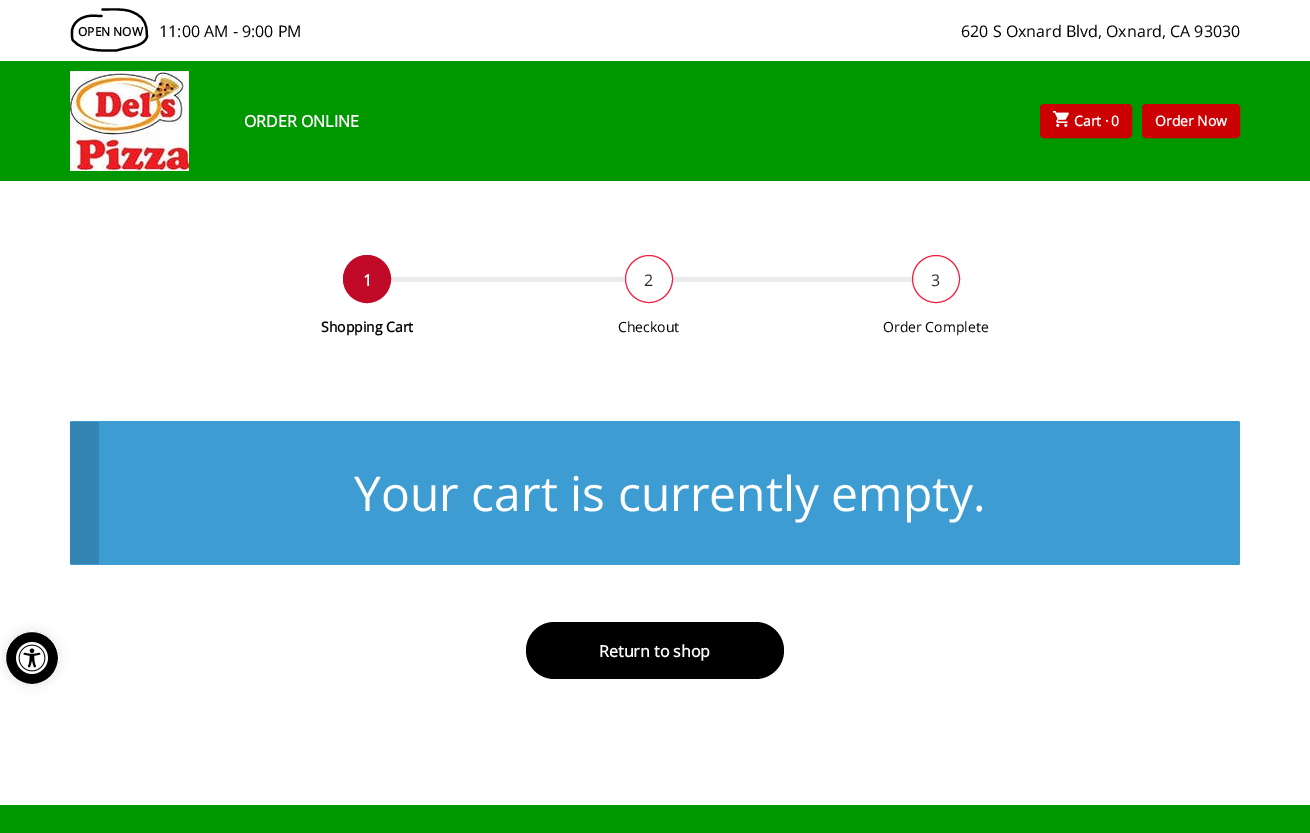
%!PS
<< /PageSize [1310 833] /PageUsesTransparency true >> setpagedevice
/rgb { dup -16 bitshift 255 div exch dup -8 bitshift 255 and 255 div exch 255 and 255 div setrgbcolor } def
/font { [ exch dup neg 0 0 3 -1 roll 0 0 ] selectfont } def
/text { moveto show } def
/alpha { dup .setfillconstantalpha .setstrokeconstantalpha } def
/circle { newpath 0 360 arc closepath } def
/roundrect { 5 dict begin { /r /h /w /y /x } { exch def } forall
  x r add y moveto x w add y 2 copy h add r arct x w add y h add x 1 index r arct
  x y h add x y r arct x y 2 copy exch w add exch r arct closepath end } def
/shadow { 12 dict begin { /a /b /q /h /w /y /x } { exch def } forall gsave /was 0 def
  9 -2 -9 { dup b mul 4 div /e exch def 1 sub .425 mul 2.718 exch exp 1 add a .99 .min exch div /now exch def
    1 1 now sub 1 was sub div sub alpha /was now def
    w h .min e 2 mul add 0 gt { x e sub y e sub w e 2 mul add h e 2 mul add
      q e add b .6 mul add w h .min 2 div e add .min 0 .max roundrect fill } if } for grestore end } def
/picture { 5 dict begin { /h /w /y /x /name } { exch def } forall
  gsave x y translate w h scale
  w h 8 [w 0 0 h 0 0] name (r) file false 3 colorimage grestore end } def
0 .pushpdf14devicefilter
0 833 translate 1 -1 scale
4 setmiterlimit
/s1 { /OpenSans-Bold 12 font 16#000000 rgb } def
/s2 { /OpenSans-Regular 16 font 16#000000 rgb } def
/s3 { /OpenSans-Bold 16 font 16#FFFFFF rgb } def
/s4 { /OpenSans-Bold 14 font 16#FFFFFF rgb } def
/s5 { /OpenSans-Bold 14 font 16#000000 rgb } def
/s6 { /OpenSans-Regular 16 font 16#2B2B2D rgb } def
/s7 { /OpenSans-Regular 14 font 16#000000 rgb } def
/s8 { /OpenSans-Regular 48 font 16#FFFFFF rgb } def
16#FFFFFF rgb
0 0 1310 833 rectfill
16#000000 rgb
5 631 54 54 27 5 0.1 shadow
32 658 26.5 circle gsave fill grestore
16#FFFFFF rgb
stroke
(pic1.raw) 16 642 32 32 picture
16#009801 rgb
0 61 1310 120 rectfill
16#000000 rgb
2.2 setlinewidth
1 setlinecap
101.5 16 moveto 93.5 16 89.5 14.5 82 18 curveto 76.5 20.5 72.5 25 72 31 curveto 72 34 71.5 38 73 40.5 curveto 76.5 43.5 lineto 84 49.5 93.5 50 103 50.5 curveto 116.5 50.5 lineto 124 48.5 lineto 131 47 145 45.5 147 36.5 curveto 146.5 29 lineto 145 19 140 15 131 11.5 curveto 123 8.5 111 9.5 102.5 9.5 curveto stroke
s1
(OPEN NOW) 78 36 text
s2
(11:00 AM - 9:00 PM) 159 37 text
(620 S Oxnard Blvd, Oxnard, CA 93030) 961 37 text
(pic2.raw) 70 71 119 100 picture
s3
(ORDER ONLINE) 244 127 text
16#CC0103 rgb
1040.5 104.5 91 33 3.5 roundrect gsave fill grestore
1 setlinewidth
0 setlinecap
stroke
(pic3.raw) 1053 111 16 16 picture
s4
(Cart ·) 1074 126 text
(0) 1111 126 text
16#CC0103 rgb
1142.5 104.5 97 33 3.5 roundrect gsave fill grestore
stroke
s4
(Order Now) 1155 126 text
16#EBEAEF rgb
390 277 236 5 rectfill
16#C00A27 rgb
367 279 23.5 circle gsave fill grestore
stroke
s3
(1) 363 286 text
s5
(Shopping Cart) 321 332 text
16#EBEAEF rgb
672 277 241 5 rectfill
16#FFFFFF rgb
649 279 23.5 circle gsave fill grestore
16#F31E40 rgb
stroke
s6
(2) 644 286 text
s7
(Checkout) 618 332 text
16#FFFFFF rgb
936 279 23.5 circle gsave fill grestore
16#F31E40 rgb
stroke
s6
(3) 931 286 text
s7
(Order Complete) 883 332 text
16#3D9CD2 rgb
70 421 1170 144 2 roundrect fill
0.15 alpha
16#000000 rgb
70 422 29 142 rectfill
1 alpha
s8
(Your cart is currently empty.) 354 511 text
16#000000 rgb
526 622 258 57 28.5 roundrect fill
s3
(Return to shop) 599 657 text
16#009801 rgb
0 805 1310 28 rectfill
.poppdf14devicefilter showpage
